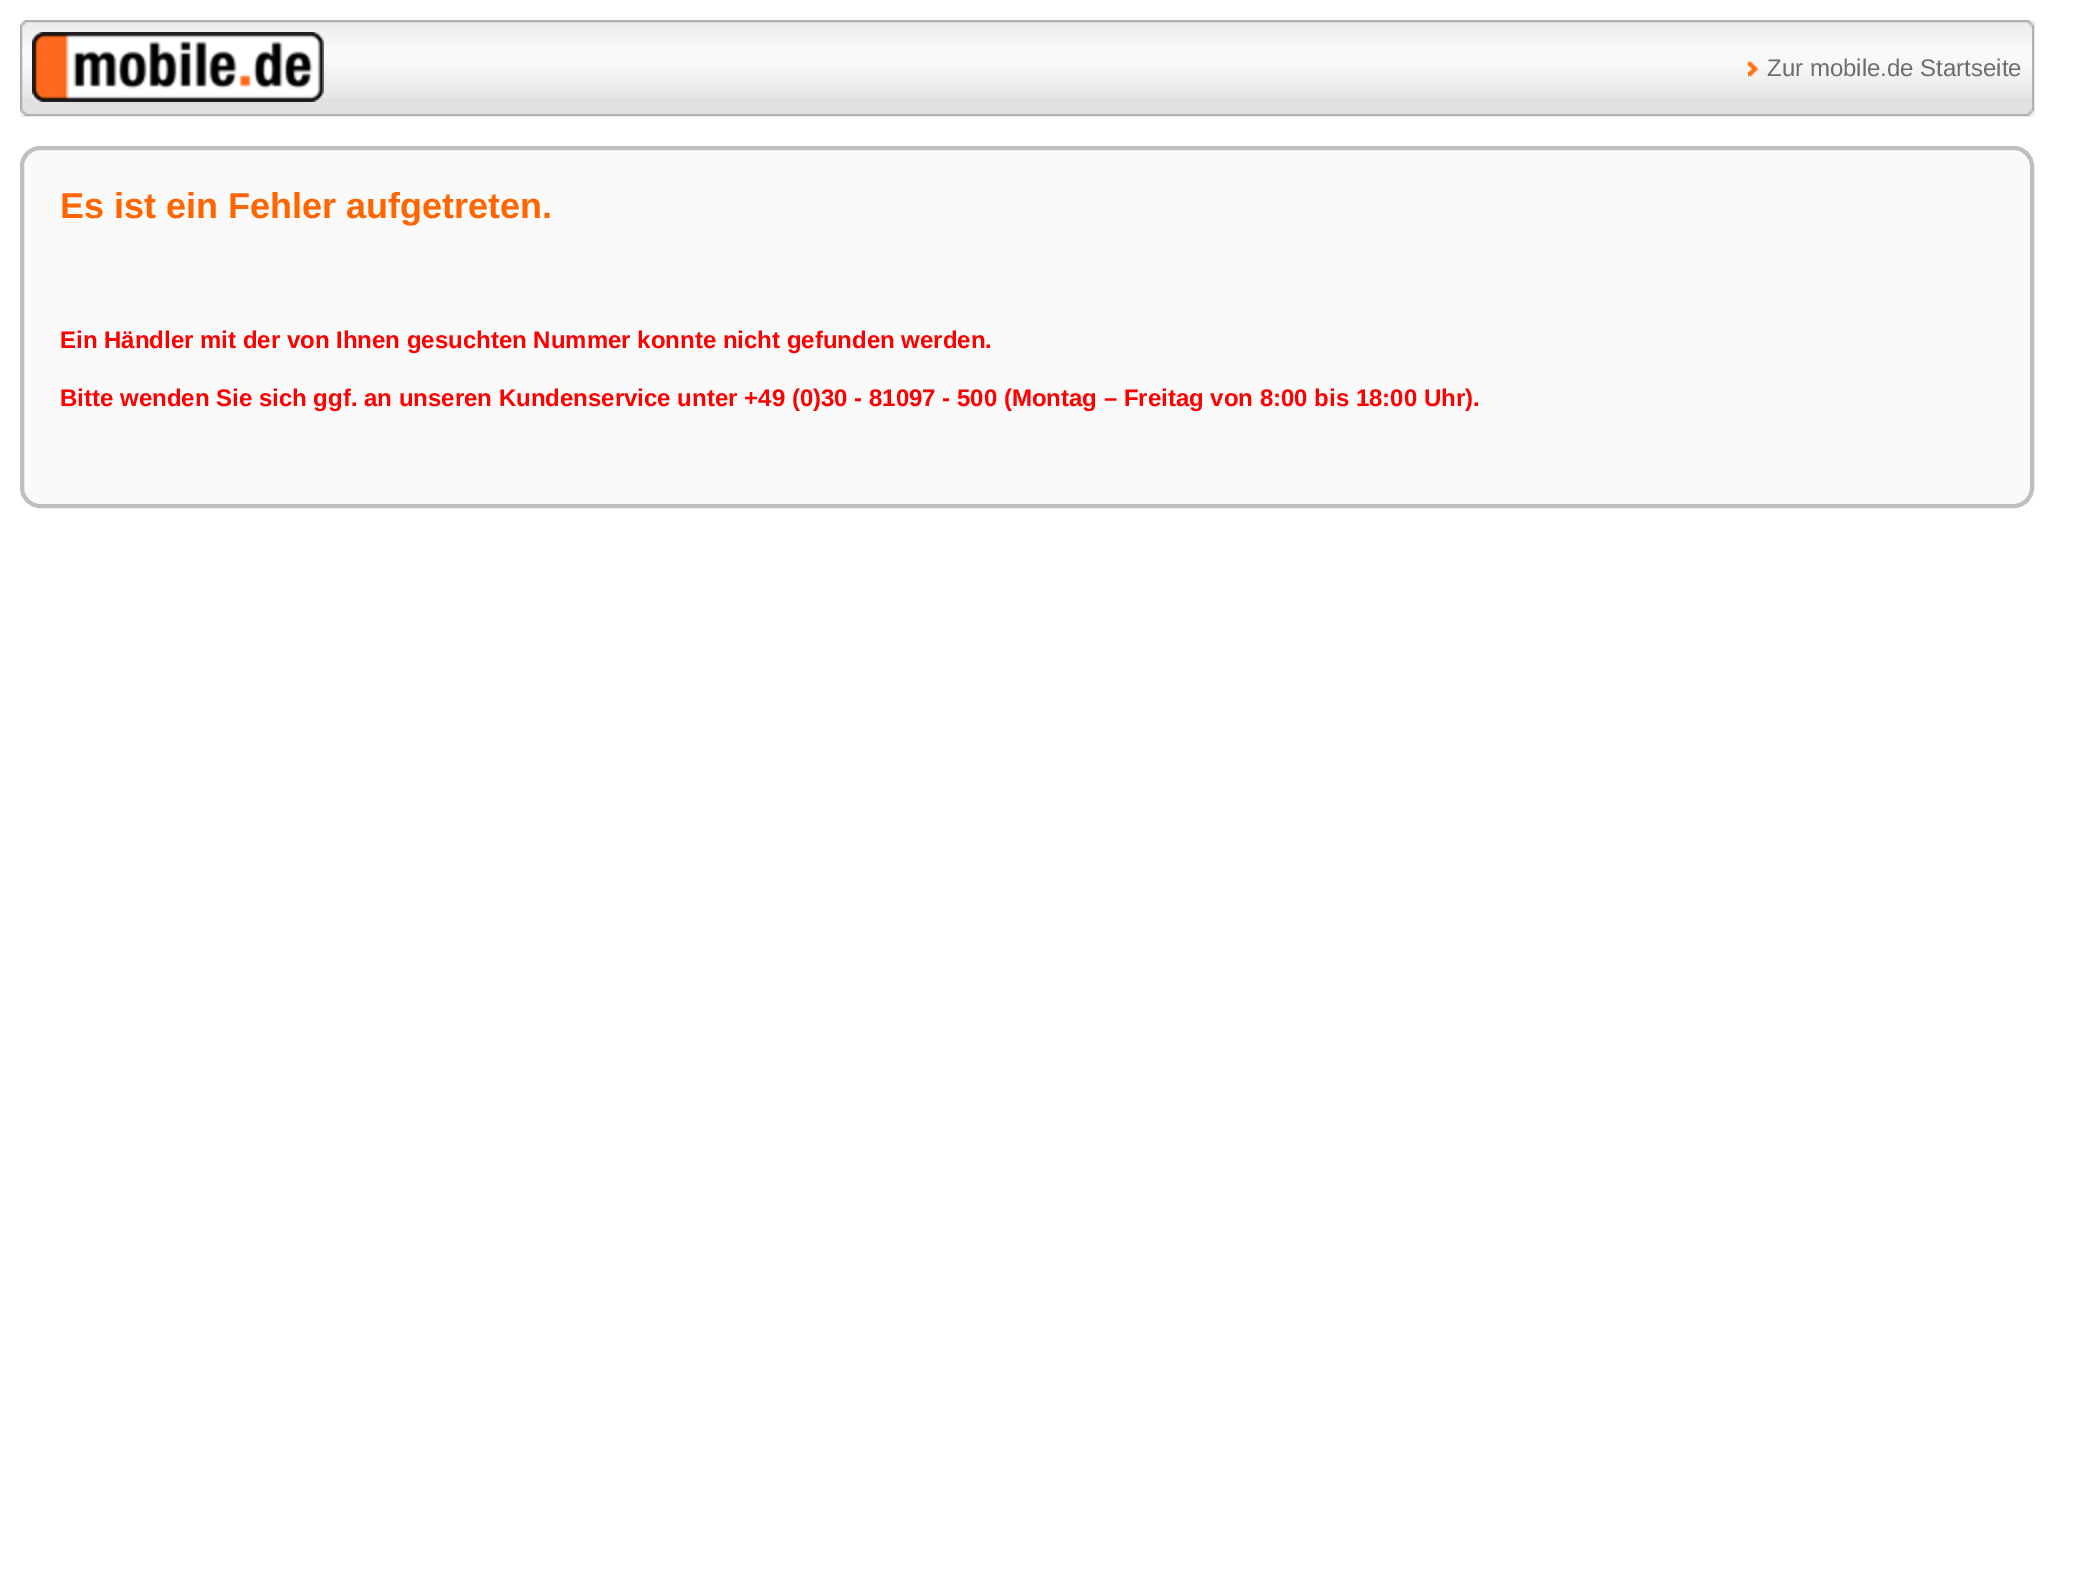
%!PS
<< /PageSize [2077 1586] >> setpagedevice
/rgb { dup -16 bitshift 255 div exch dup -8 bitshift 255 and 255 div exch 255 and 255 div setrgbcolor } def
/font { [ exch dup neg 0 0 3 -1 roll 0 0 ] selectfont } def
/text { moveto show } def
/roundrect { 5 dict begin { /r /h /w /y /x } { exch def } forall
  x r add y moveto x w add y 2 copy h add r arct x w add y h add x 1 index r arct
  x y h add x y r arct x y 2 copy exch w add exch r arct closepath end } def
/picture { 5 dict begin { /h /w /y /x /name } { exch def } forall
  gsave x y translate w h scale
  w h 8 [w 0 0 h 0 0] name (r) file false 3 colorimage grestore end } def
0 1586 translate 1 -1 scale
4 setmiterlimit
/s1 { /LiberationSans-Regular 24 font 16#6E6D6D rgb } def
/s2 { /LiberationSans-Bold 36 font 16#FF6600 rgb } def
/s3 { /LiberationSans-Bold 24 font 16#FF0000 rgb } def
16#FFFFFF rgb
0 0 2077 1586 rectfill
16#E1E1E1 rgb
22 98 2010 16 rectfill
(pic1.raw) 22 22 2010 76 picture
16#B0B0B0 rgb
2 setlinewidth
21 21 2012 94 rectstroke
(pic2.raw) 20 20 8 8 picture
(pic3.raw) 2026 20 8 8 picture
(pic4.raw) 32 32 292 70 picture
(pic5.raw) 1748 61 11 16 picture
s1
(Zur mobile.de Startseite) 1767 76 text
(pic6.raw) 20 108 8 8 picture
(pic7.raw) 2026 108 8 8 picture
16#FAFAFA rgb
22 148 2010 358 18 roundrect gsave fill grestore
16#BFBFBF rgb
4 setlinewidth
stroke
s2
(Es ist ein Fehler aufgetreten.) 60 218 text
s3
(Ein Händler mit der von Ihnen gesuchten Nummer konnte nicht gefunden werden.) 60 348 text
(Bitte wenden Sie sich ggf. an unseren Kundenservice unter +49 \(0\)30 - 81097 - 500 \(Montag – Freitag von 8:00 bis 18:00 Uhr\).) 60 406 text
showpage
